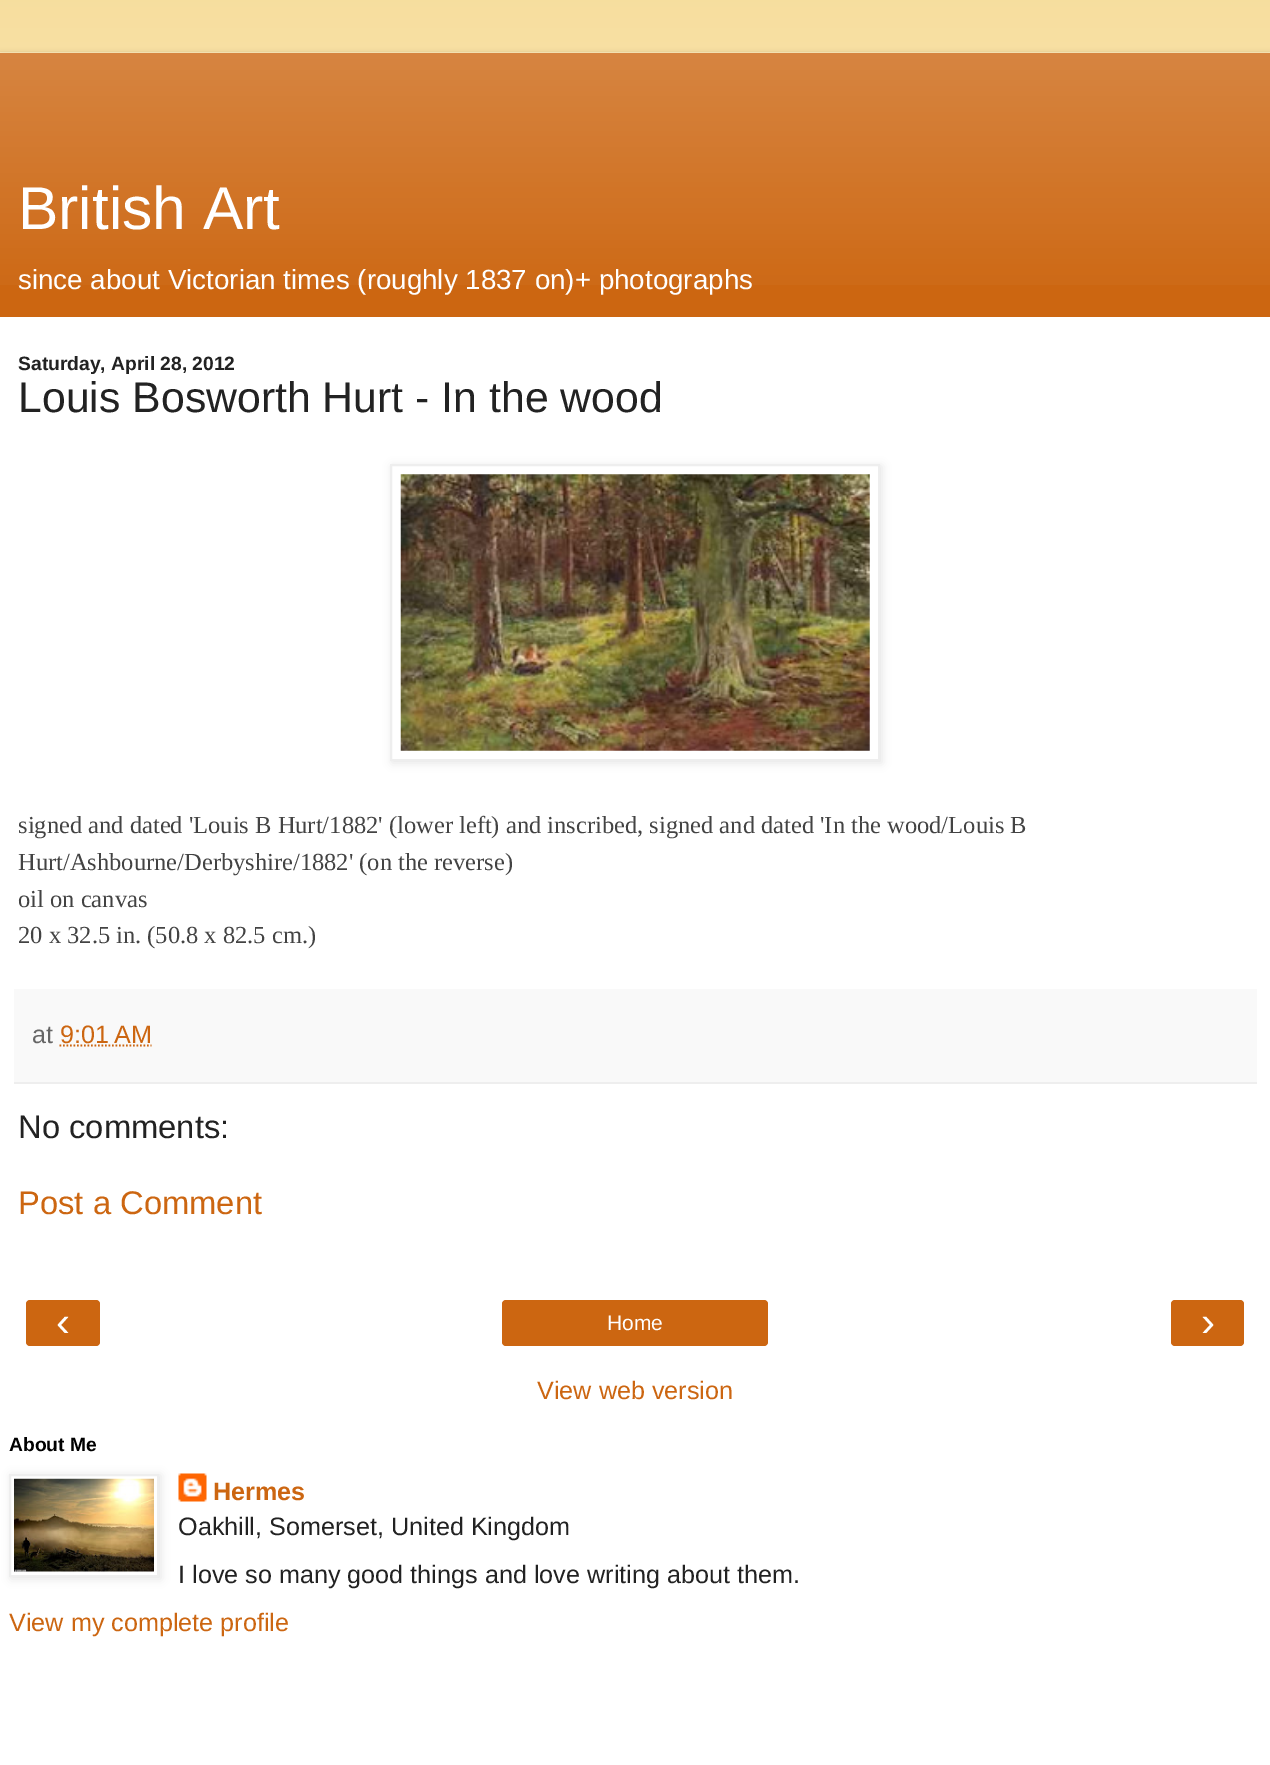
%!PS
<< /PageSize [1270 1765] /PageUsesTransparency true >> setpagedevice
/rgb { dup -16 bitshift 255 div exch dup -8 bitshift 255 and 255 div exch 255 and 255 div setrgbcolor } def
/font { [ exch dup neg 0 0 3 -1 roll 0 0 ] selectfont } def
/text { moveto show } def
/alpha { dup .setfillconstantalpha .setstrokeconstantalpha } def
/roundrect { 5 dict begin { /r /h /w /y /x } { exch def } forall
  x r add y moveto x w add y 2 copy h add r arct x w add y h add x 1 index r arct
  x y h add x y r arct x y 2 copy exch w add exch r arct closepath end } def
/shadow { 12 dict begin { /a /b /q /h /w /y /x } { exch def } forall gsave /was 0 def
  9 -2 -9 { dup b mul 4 div /e exch def 1 sub .425 mul 2.718 exch exp 1 add a .99 .min exch div /now exch def
    1 1 now sub 1 was sub div sub alpha /was now def
    w h .min e 2 mul add 0 gt { x e sub y e sub w e 2 mul add h e 2 mul add
      q e add b .6 mul add w h .min 2 div e add .min 0 .max roundrect fill } if } for grestore end } def
/picture { 5 dict begin { /h /w /y /x /name } { exch def } forall
  gsave x y translate w h scale
  w h 8 [w 0 0 h 0 0] name (r) file false 3 colorimage grestore end } def
0 .pushpdf14devicefilter
0 1765 translate 1 -1 scale
4 setmiterlimit
/s1 { /LiberationSans-Regular 60.5 font 16#FFFFFF rgb } def
/s2 { /LiberationSans-Regular 27.75 font 16#FFFFFF rgb } def
/s3 { /LiberationSans-Bold 19.25 font 16#222222 rgb } def
/s4 { /LiberationSans-Regular 42.8 font 16#222222 rgb } def
/s5 { /LiberationSerif-Regular 24.5 font 16#434343 rgb } def
/s6 { /LiberationSans-Regular 25.2 font 16#666666 rgb } def
/s7 { /LiberationSans-Regular 25.2 font 16#CC6611 rgb } def
/s8 { /LiberationSans-Regular 32.75 font 16#222222 rgb } def
/s9 { /LiberationSans-Regular 32.75 font 16#CC6611 rgb } def
/s10 { /LiberationSans-Regular 42 font 16#FFFFFF rgb } def
/s11 { /LiberationSans-Regular 21 font 16#FFFFFF rgb } def
/s12 { /LiberationSans-Bold 19.25 font 16#000000 rgb } def
/s13 { /LiberationSans-Bold 25.2 font 16#CC6611 rgb } def
/s14 { /LiberationSans-Regular 25.2 font 16#222222 rgb } def
16#F6DC99 rgb
0 0 1270 1765 rectfill
(pic1.raw) 0 0 1270 53 picture
16#000000 rgb
0 53 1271 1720 0 2.5 0.15 shadow
16#FFFFFF rgb
0 317 1270 1448 rectfill
16#CC6611 rgb
0 53 1270 264 rectfill
(pic2.raw) 0 52 1270 233 picture
s1
(British Art) 18 229 text
s2
(since about Victorian times \(roughly 1837 on\)+ photographs) 18 289 text
s3
(Saturday, April 28, 2012) 18 370 text
s4
(Louis Bosworth Hurt - In the wood) 18 412 text
16#000000 rgb
392 466 490 297 0 4.5 0.1 shadow
16#FFFFFF rgb
391 465 moveto 879 465 lineto 879 760 lineto 391 760 lineto closepath gsave fill grestore
16#EEEEEE rgb
2 setlinewidth
stroke
(pic3.raw) 400 474 470 277 picture
s5
(signed and dated 'Louis B Hurt/1882' \(lower left\) and inscribed, signed and dated 'In the wood/Louis B) 18 833 text
(Hurt/Ashbourne/Derbyshire/1882' \(on the reverse\)) 18 870 text
(oil on canvas) 18 907 text
(20 x 32.5 in. \(50.8 x 82.5 cm.\)) 18 943 text
16#F9F9F9 rgb
14 989 1243 93 rectfill
16#EEEEEE rgb
14 1082 1243 2 rectfill
s6
(at) 32 1043 text
s7
(9:01 AM) 60 1043 text
1.8 setlinewidth
[1.75 1.75] 0 setdash
59.5 1045.5 moveto 151.5 1045.5 lineto stroke
s8
(No comments:) 18 1138 text
s9
(Post a Comment) 18 1214 text
26 1300 74 46 4 roundrect fill
s10
(‹) 56 1336 text
16#CC6611 rgb
502 1300 266 46 4 roundrect fill
s11
(Home) 607 1330 text
16#CC6611 rgb
1171 1300 73 46 4 roundrect fill
s10
(›) 1201 1336 text
s7
(View web version) 537 1399 text
s12
(About Me) 9 1451 text
11 1475 150 104 0 4.5 0.1 shadow
16#FFFFFF rgb
10 1475 moveto 158 1475 lineto 158 1576 lineto 10 1576 lineto closepath gsave fill grestore
16#EEEEEE rgb
2 setlinewidth
[] 0 setdash
stroke
(pic4.raw) 14 1478 140 94 picture
(pic5.raw) 178 1473 29 29 picture
s13
(Hermes) 213 1500 text
s14
(Oakhill, Somerset, United Kingdom) 178 1535 text
(I love so many good things and love writing about them.) 178 1583 text
s7
(View my complete profile) 9 1631 text
.poppdf14devicefilter showpage
